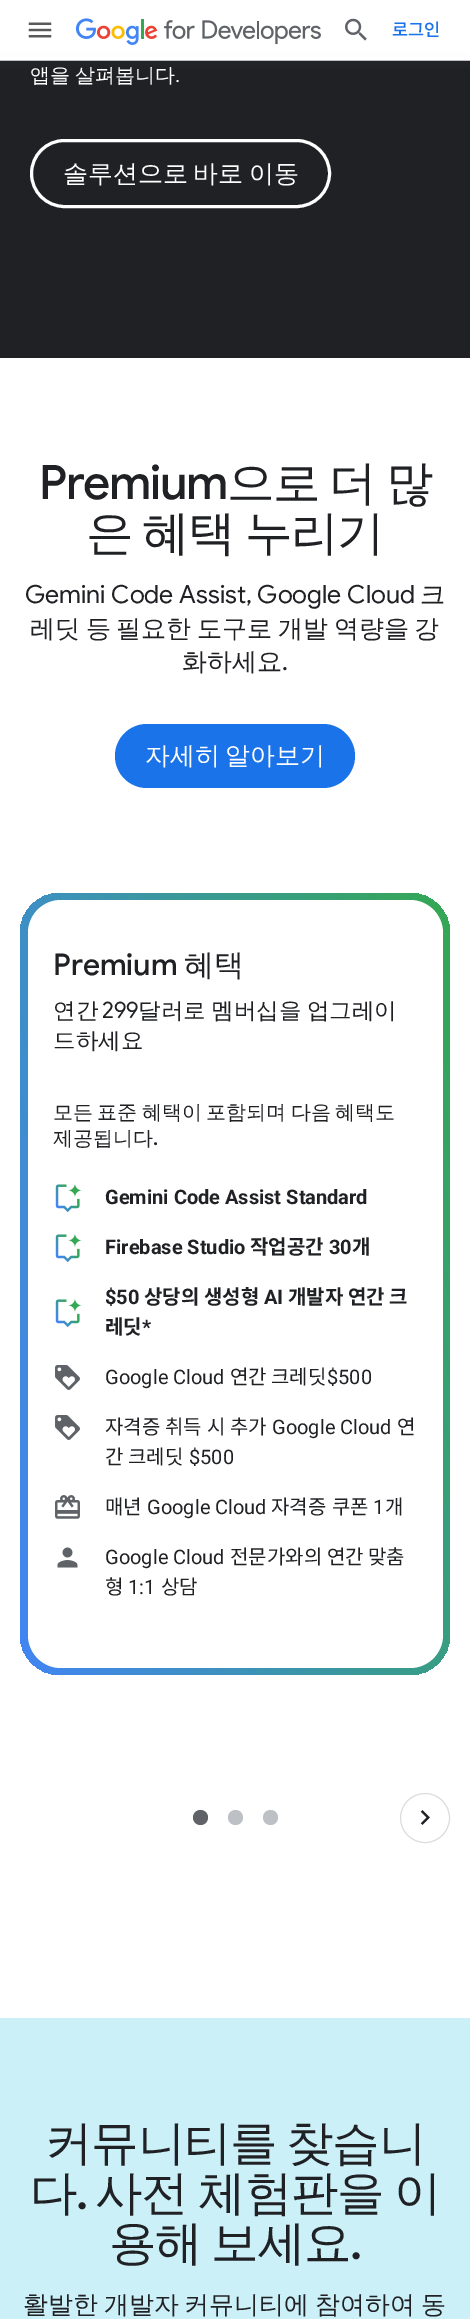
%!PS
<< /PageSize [470 2319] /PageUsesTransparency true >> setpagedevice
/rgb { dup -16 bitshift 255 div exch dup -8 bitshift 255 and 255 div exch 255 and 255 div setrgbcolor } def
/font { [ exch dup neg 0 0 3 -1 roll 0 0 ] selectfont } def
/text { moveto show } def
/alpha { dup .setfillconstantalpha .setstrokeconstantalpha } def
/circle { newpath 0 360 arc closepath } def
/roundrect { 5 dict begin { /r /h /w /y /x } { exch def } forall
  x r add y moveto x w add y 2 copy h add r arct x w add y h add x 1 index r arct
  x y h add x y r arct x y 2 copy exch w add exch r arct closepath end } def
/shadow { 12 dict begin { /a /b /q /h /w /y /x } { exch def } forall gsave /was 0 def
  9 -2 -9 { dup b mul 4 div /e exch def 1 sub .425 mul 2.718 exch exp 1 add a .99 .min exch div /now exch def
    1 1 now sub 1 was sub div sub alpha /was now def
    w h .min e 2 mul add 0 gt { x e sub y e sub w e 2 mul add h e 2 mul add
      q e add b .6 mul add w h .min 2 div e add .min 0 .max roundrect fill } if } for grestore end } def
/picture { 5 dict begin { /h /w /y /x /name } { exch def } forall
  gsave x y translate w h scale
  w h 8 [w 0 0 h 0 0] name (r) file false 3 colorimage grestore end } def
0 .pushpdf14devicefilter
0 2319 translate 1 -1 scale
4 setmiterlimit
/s1 { /NotoSansKR-Medium 17.5 font 16#1A73E8 rgb } def
/s2 { /Roboto-Regular 20 font 16#FFFFFF rgb } def
/s3 { /GoogleSans-Regular 25 font 16#202124 rgb } def
/s4 { /WenQuanYiZenHei-Medium 25 font 16#202124 rgb } def
/s5 { /GoogleSans-Medium 30 font 16#202124 rgb } def
/s6 { /WenQuanYiZenHei-Medium 30 font 16#202124 rgb } def
/s7 { /WenQuanYiZenHei-Medium 22.5 font 16#202124 rgb } def
/s8 { /GoogleSans-Regular 22.5 font 16#202124 rgb } def
/s9 { /WenQuanYiZenHei-Medium 20 font 16#202124 rgb } def
/s10 { /GoogleSans-Medium 20 font 16#202124 rgb } def
/s11 { /Roboto-Bold 20 font 16#202124 rgb } def
/s12 { /NotoSansKR-Bold 20 font 16#202124 rgb } def
/s13 { /Roboto-Regular 20 font 16#202124 rgb } def
/s14 { /NotoSansKR-Regular 20 font 16#202124 rgb } def
16#FFFFFF rgb
0 0 470 2319 rectfill
16#202124 rgb
0 61 470 297 rectfill
16#3C4043 rgb
-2 61 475 5 0 4 0.15 shadow
16#FFFFFF rgb
0 56 470 4 rectfill
16#BDC1C6 rgb
0 60 470 1 rectfill
(pic1.raw) 28 22 24 16 picture
(pic2.raw) 75 18 246 27 picture
(pic3.raw) 345 18 22 23 picture
s1
(로그인) 392 36 text
/WenQuanYiZenHei-Medium 20 font
16#FFFFFF rgb
30 82 moveto -1 0 32 (앱을 살펴봅니다) widthshow
s2
(.) 175 82 text
3 setlinewidth
31.5 140.5 298 66 33 roundrect stroke
/WenQuanYiZenHei-Medium 25 font
63 182 moveto -2 0 32 (솔루션으로 바로 이동) widthshow
/GoogleSans-Medium 47.5 font
16#202124 rgb
39 499 moveto -1.25 0 (Premium) ashow
/WenQuanYiZenHei-Medium 47.5 font
227 499 moveto -3 0 32 -1.25 0 (으로 더 많) awidthshow
86 549 moveto -3 0 32 -1.25 0 (은 혜택 누리기) awidthshow
s3
(Gemini Code Assist, Google Cloud) 25 603 text
s4
(크) 420 603 text
30 637 moveto -1.75 0 32 (레딧 등 필요한 도구로 개발 역량을 강) widthshow
(화하세요) 182 670 text
s3
(.) 282 670 text
16#1A73E8 rgb
115 724 240 64 32 roundrect fill
/WenQuanYiZenHei-Medium 25 font
16#FFFFFF rgb
145 764 moveto -2 0 32 (자세히 알아보기) widthshow
gsave 20 893 430 782 40 roundrect clip newpath
<< /ShadingType 2 /ColorSpace /DeviceRGB /Coords [-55 1351 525 1217] /Extend [true true] /Function << /FunctionType 2 /Domain [0 1] /C0 [0.259 0.522 0.957] /C1 [0.204 0.659 0.325] /N 1 >> >> shfill grestore
28 900 415 768 33 roundrect fill
s5
(Premium) 53 975 text
s6
(혜택) 184 975 text
s7
(연간) 53 1018 text
s8
(299) 102 1018 text
/WenQuanYiZenHei-Medium 22.5 font
138 1018 moveto -1 0 32 (달러로 멤버십을 업그레이) widthshow
(드하세요) 53 1048 text
/WenQuanYiZenHei-Medium 20 font
53 1119 moveto -1.5 0 32 (모든 표준 혜택이 포함되며 다음 혜택도) widthshow
(제공됩니다) 53 1145 text
s10
(.) 153 1145 text
(pic4.raw) 55 1183 27 30 picture
s11
(Gemini Code Assist Standard) 105 1204 text
(pic4.raw) 55 1233 27 30 picture
(Firebase Studio) 105 1254 text
s12
(작업공간) 250 1254 text
s11
(30) 329 1254 text
s12
(개) 352 1254 text
(pic4.raw) 55 1298 27 30 picture
s11
($50) 105 1304 text
s12
(상당의 생성형) 144 1304 text
s11
(AI) 264 1304 text
s12
(개발자 연간 크) 288 1304 text
(레딧) 105 1334 text
s11
(*) 142 1334 text
(pic5.raw) 55 1365 25 25 picture
s13
(Google Cloud) 105 1384 text
s14
(연간) 230 1384 text
(크레딧) 271 1384 text
s13
($500) 327 1384 text
(pic5.raw) 55 1415 25 25 picture
s14
(자격증) 105 1434 text
(취득) 165 1434 text
(시) 207 1434 text
(추가) 230 1434 text
s13
(Google Cloud) 272 1434 text
s14
(연) 397 1434 text
(간 크레딧) 105 1464 text
s13
($500) 189 1464 text
(pic6.raw) 55 1495 25 24 picture
s14
(매년) 105 1514 text
s13
(Google Cloud) 147 1514 text
s14
(자격증) 271 1514 text
(쿠폰) 332 1514 text
s13
(1) 373 1514 text
s14
(개) 385 1514 text
(pic7.raw) 57 1547 21 21 picture
s13
(Google Cloud) 105 1564 text
s14
(전문가와의) 230 1564 text
(연간) 327 1564 text
(맞춤) 368 1564 text
(형) 105 1594 text
s13
(1:1) 128 1594 text
s14
(상담) 161 1594 text
16#5F6368 rgb
200.5 1817.5 7.5 circle fill
16#BDC1C6 rgb
235.5 1817.5 7.5 circle fill
270.5 1817.5 7.5 circle fill
16#DADCE0 rgb
1 setlinewidth
425 1818 24.5 circle stroke
(pic8.raw) 420 1810 10 15 picture
16#CBF0F8 rgb
0 2018 470 301 rectfill
/WenQuanYiZenHei-Medium 47.5 font
16#202124 rgb
45 2159 moveto -3 0 32 -1.25 0 (커뮤니티를 찾습니) awidthshow
30 2209 moveto -1.25 0 (다) ashow
/GoogleSans-Medium 47.5 font
76 2209 moveto -1.25 0 (.) ashow
/WenQuanYiZenHei-Medium 47.5 font
95 2209 moveto -2 0 32 -1.25 0 (사전 체험판을 이) awidthshow
109 2259 moveto -3 0 32 -1.25 0 (용해 보세요) awidthshow
/GoogleSans-Medium 47.5 font
350 2259 moveto -1.25 0 (.) ashow
/WenQuanYiZenHei-Medium 25 font
23 2313 moveto -1.75 0 32 (활발한 개발자 커뮤니티에 참여하여 동) widthshow
.poppdf14devicefilter showpage
